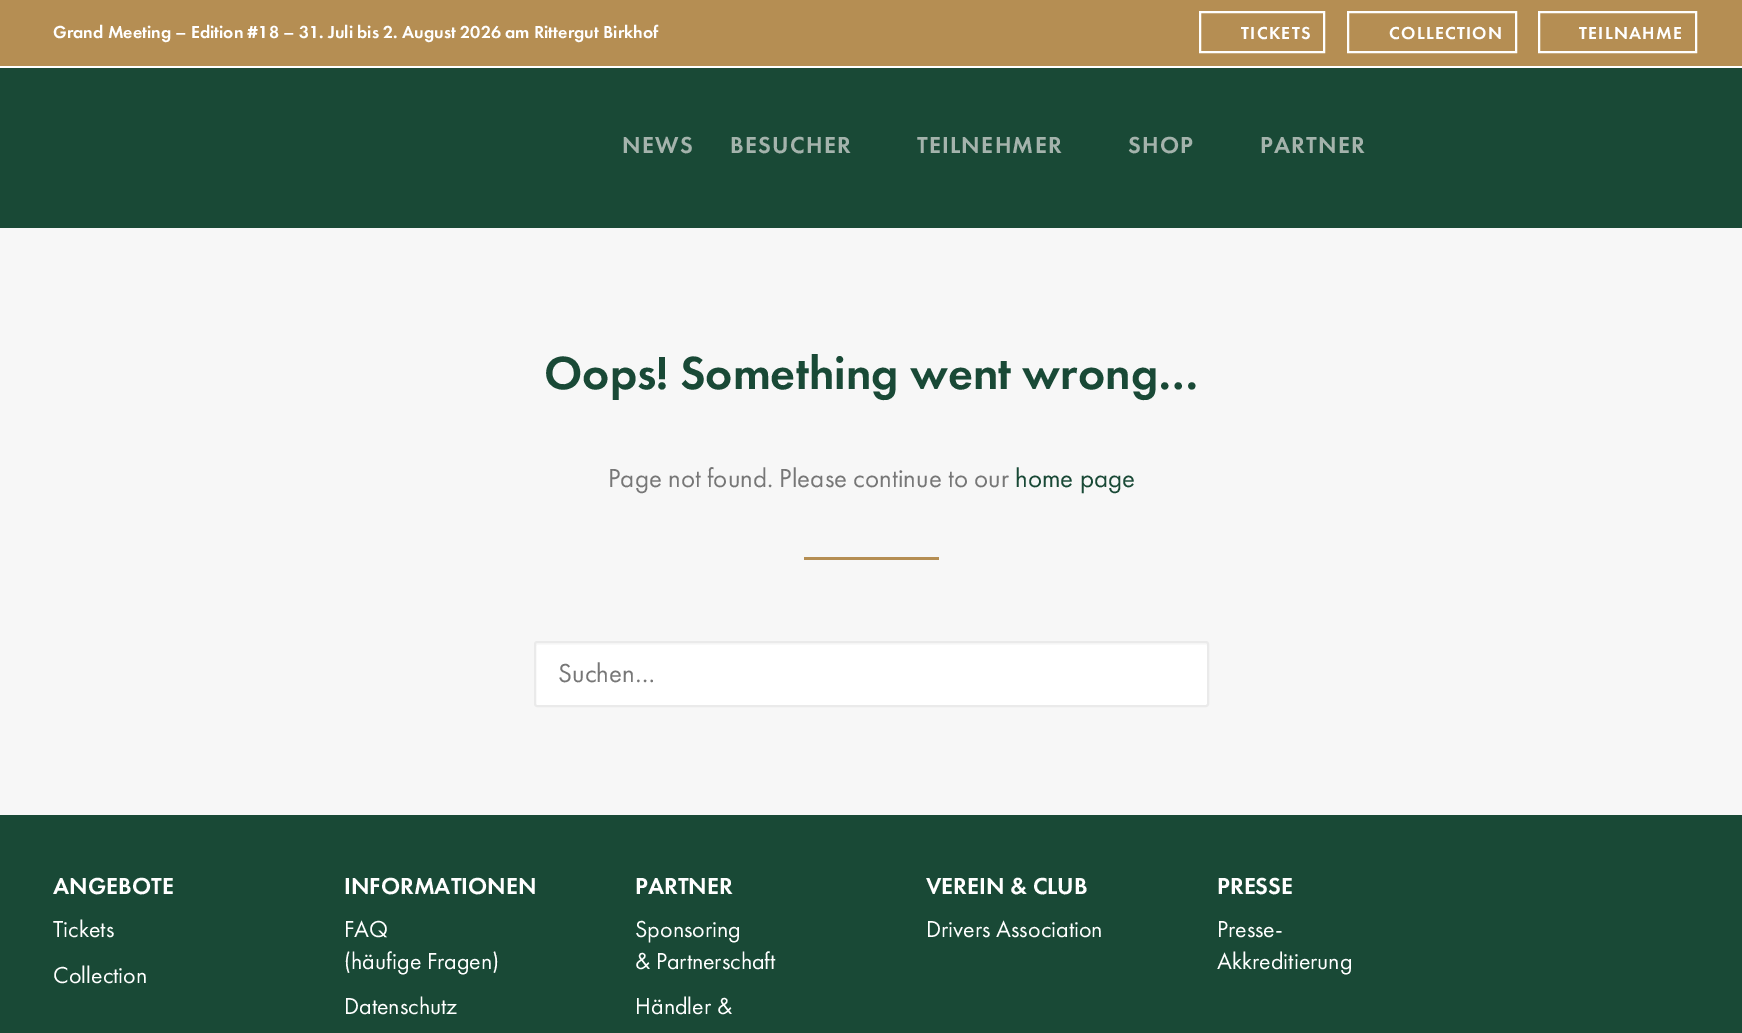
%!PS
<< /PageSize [1742 1033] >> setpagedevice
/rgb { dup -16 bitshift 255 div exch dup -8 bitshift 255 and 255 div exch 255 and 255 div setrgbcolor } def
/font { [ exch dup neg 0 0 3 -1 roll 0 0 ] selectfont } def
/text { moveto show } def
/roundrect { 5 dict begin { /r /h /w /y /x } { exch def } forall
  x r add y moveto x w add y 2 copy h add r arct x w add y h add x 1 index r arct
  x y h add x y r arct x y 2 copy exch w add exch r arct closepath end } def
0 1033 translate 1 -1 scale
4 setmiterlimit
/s1 { /FuturaPT-Medium 18 font 16#FFFFFF rgb } def
/s2 { /FuturaPT-Medium 48 font 16#194936 rgb } def
/s3 { /FuturaPT-Regular 27 font 16#777777 rgb } def
/s4 { /FuturaPT-Regular 27 font 16#194936 rgb } def
/s5 { /FuturaPT-Medium 24 font 16#FFFFFF rgb } def
/s6 { /FuturaPT-Regular 24 font 16#FFFFFF rgb } def
16#F7F7F7 rgb
0 0 1742 1033 rectfill
16#B58E53 rgb
0 0 1742 66 rectfill
16#FFFFFF rgb
0 66 1742 2 rectfill
s1
(Grand Meeting – Edition #18 – 31. Juli bis 2. August 2026 am Rittergut Birkhof) 53 38 text
2 setlinewidth
1200 12 124 40 rectstroke
1241 39 moveto 1.25 0 (TICKETS) ashow
1348 12 168 40 rectstroke
1389 39 moveto 1.25 0 (COLLECTION) ashow
1539 12 157 40 rectstroke
1579 39 moveto 1.25 0 (TEILNAHME) ashow
16#194936 rgb
0 68 1742 160 rectfill
/FuturaPT-Medium 24 font
16#A4B3AC rgb
622 153 moveto 1.25 0 (NEWS) ashow
730 153 moveto 1.25 0 (BESUCHER) ashow
917 153 moveto 1.25 0 (TEILNEHMER) ashow
1128 153 moveto 1.25 0 (SHOP) ashow
1260 153 moveto 1.25 0 (PARTNER) ashow
s2
(Oops! Something went wrong…) 544 389 text
s3
(Page not found. Please continue to our) 608 487 text
s4
(home page) 1015 487 text
16#B58E53 rgb
804 557 135 3 rectfill
16#FFFFFF rgb
534 641 675 66 3 roundrect fill
16#F9F9F9 rgb
537 645 moveto 1206 645 lineto 1208 646 lineto 1208 645 1209 642 1206 642 curveto 537 642 lineto 536 643 lineto 536 646 lineto closepath fill
16#EAEAEA rgb
535 642 673 64 2 roundrect stroke
s3
(Suchen…) 558 682 text
16#194936 rgb
0 815 1742 218 rectfill
s5
(ANGEBOTE) 53 894 text
s6
(Tickets) 53 937 text
(Collection) 53 983 text
s5
(INFORMATIONEN) 344 894 text
s6
(FAQ) 344 937 text
(\(häufige Fragen\)) 344 969 text
(Datenschutz) 344 1014 text
s5
(PARTNER) 635 894 text
s6
(Sponsoring) 635 937 text
(& Partnerschaft) 635 969 text
(Händler &) 635 1014 text
s5
(VEREIN & CLUB) 926 894 text
s6
(Drivers Association) 926 937 text
s5
(PRESSE) 1217 894 text
s6
(Presse-) 1217 937 text
(Akkreditierung) 1217 969 text
showpage
